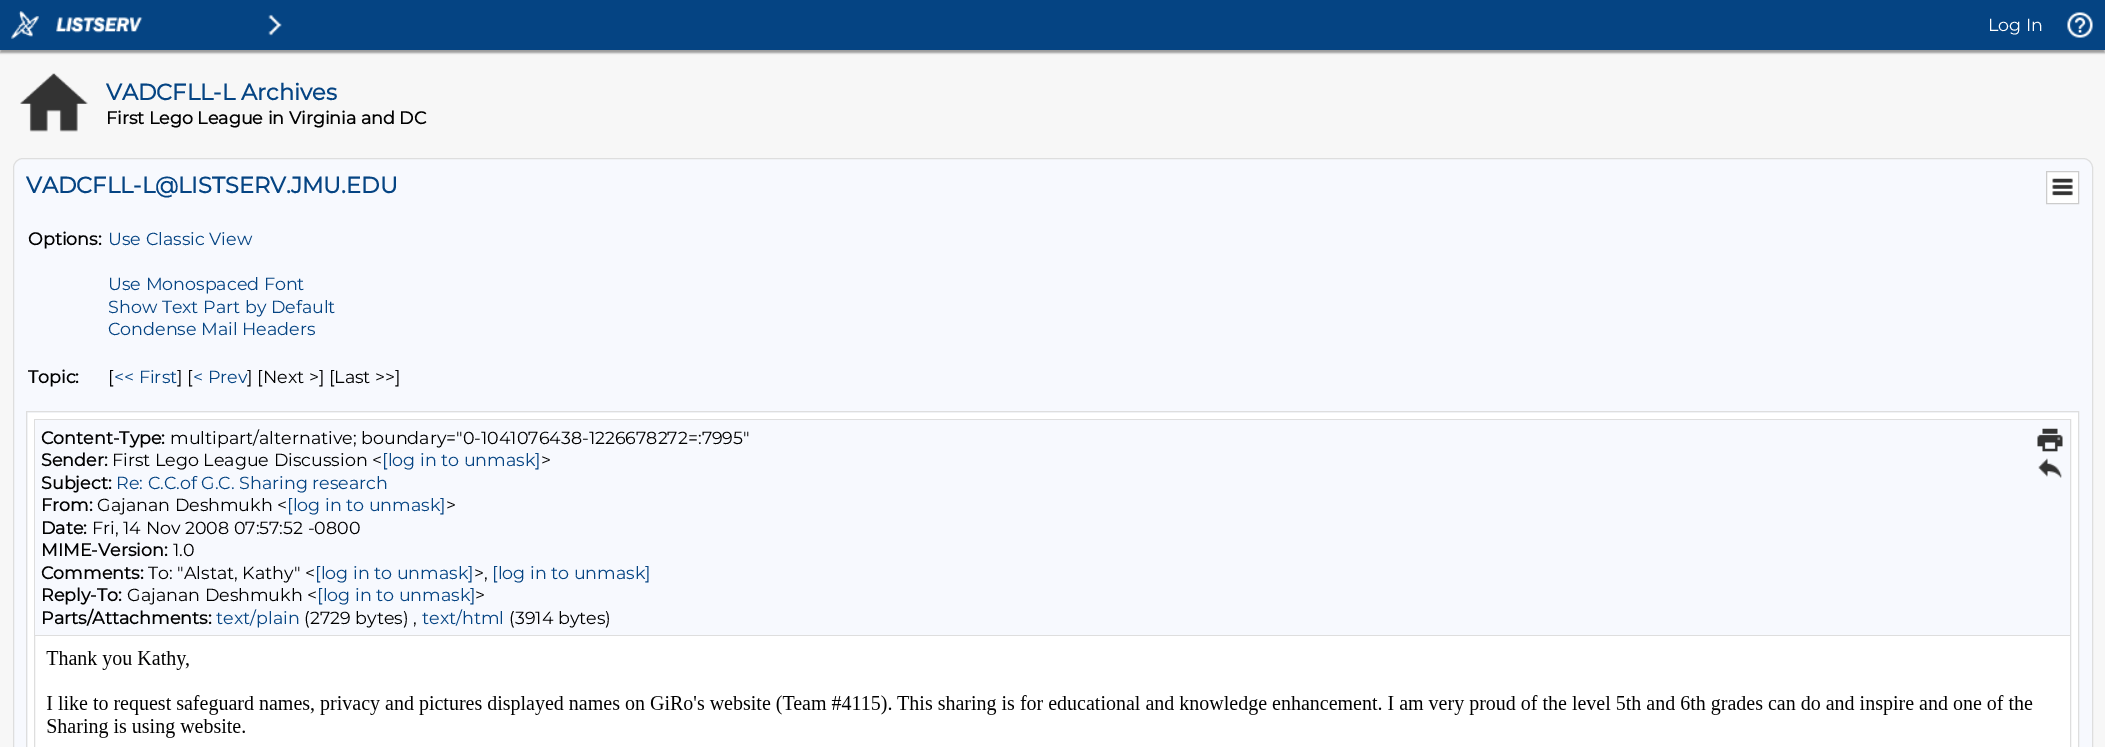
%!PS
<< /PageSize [2105 747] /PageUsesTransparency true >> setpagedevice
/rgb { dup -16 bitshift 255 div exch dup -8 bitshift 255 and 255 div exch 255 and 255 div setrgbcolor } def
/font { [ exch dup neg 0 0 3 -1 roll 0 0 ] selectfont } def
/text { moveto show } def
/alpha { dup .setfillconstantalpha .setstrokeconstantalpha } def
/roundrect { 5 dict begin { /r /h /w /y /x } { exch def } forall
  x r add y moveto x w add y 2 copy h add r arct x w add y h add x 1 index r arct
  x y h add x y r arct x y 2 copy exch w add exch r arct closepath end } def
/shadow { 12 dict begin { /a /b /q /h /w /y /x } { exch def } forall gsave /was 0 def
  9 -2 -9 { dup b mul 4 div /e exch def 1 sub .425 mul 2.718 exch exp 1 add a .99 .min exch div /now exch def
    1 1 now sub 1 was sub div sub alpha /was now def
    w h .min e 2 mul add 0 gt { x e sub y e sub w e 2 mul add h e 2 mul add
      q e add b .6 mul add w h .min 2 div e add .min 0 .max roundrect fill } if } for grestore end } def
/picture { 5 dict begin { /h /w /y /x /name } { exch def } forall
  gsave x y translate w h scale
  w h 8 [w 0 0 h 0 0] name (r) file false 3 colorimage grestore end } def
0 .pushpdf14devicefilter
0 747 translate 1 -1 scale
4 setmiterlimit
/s1 { /Montserrat-Thin 17.5 font 16#FFFFFF rgb } def
/s2 { /Montserrat-Bold 22.5 font 16#054483 rgb } def
/s3 { /Montserrat-Bold 17.5 font 16#000000 rgb } def
/s4 { /Montserrat-Thin 17.5 font 16#054483 rgb } def
/s5 { /Montserrat-Thin 17.5 font 16#000000 rgb } def
16#F7F7F7 rgb
0 0 2105 747 rectfill
16#999999 rgb
0 3 2105 50 0 1 1 shadow
16#054483 rgb
0 0 2105 50 rectfill
(pic1.raw) 11 11 28 28 picture
(pic2.raw) 56 17 87 16 picture
(pic3.raw) 268 14 14 22 picture
s1
(Log In) 1988 31 text
(pic4.raw) 2067 12 26 26 picture
(pic5.raw) 20 73 68 59 picture
s2
(VADCFLL-L Archives) 106 100 text
s3
(First Lego League in Virginia and DC) 106 124 text
16#F7F9FE rgb
13.5 158.5 2079 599 9.5 roundrect gsave fill grestore
16#DEDEDE rgb
stroke
s2
(VADCFLL-L@LISTSERV.JMU.EDU) 26 193 text
16#FFFFFF rgb
2046.5 171.5 moveto 2078.5 171.5 lineto 2078.5 203.5 lineto 2046.5 203.5 lineto closepath gsave fill grestore
16#CCCCCC rgb
stroke
(pic6.raw) 2052 178 21 18 picture
s3
(Options:) 28 245 text
s4
(Use Classic View) 108 245 text
(Use Monospaced Font) 108 290 text
(Show Text Part by Default) 108 313 text
(Condense Mail Headers) 108 335 text
s3
(Topic:) 28 383 text
s5
([) 108 383 text
s4
(<< First) 114 383 text
s5
(] [) 177 383 text
s4
(< Prev) 193 383 text
s5
(] [Next >] [Last >>]) 247 383 text
16#DEDEDE rgb
26.5 411.5 2052 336 rectstroke
16#FFFFFF rgb
28 413 2050 334 rectfill
16#DEDEDE rgb
34.5 419.5 2036 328 rectstroke
16#F7F9FE rgb
35 420 2035 215 rectfill
16#DEDEDE rgb
35 635 2035 1 rectfill
s3
(Content-Type:) 41 444 text
s5
(multipart/alternative; boundary="0-1041076438-1226678272=:7995") 170 444 text
(pic7.raw) 2037 428 26 24 picture
(pic8.raw) 2038 458 24 20 picture
s3
(Sender:) 41 466 text
s5
(First Lego League Discussion <) 112 466 text
s4
([log in to unmask]) 382 466 text
s5
(>) 541 466 text
s3
(Subject:) 41 489 text
s4
(Re: C.C.of G.C. Sharing research) 116 489 text
s3
(From:) 41 511 text
s5
(Gajanan Deshmukh <) 97 511 text
s4
([log in to unmask]) 287 511 text
s5
(>) 446 511 text
s3
(Date:) 41 534 text
s5
(Fri, 14 Nov 2008 07:57:52 -0800) 92 534 text
s3
(MIME-Version:) 41 556 text
s5
(1.0) 173 556 text
s3
(Comments:) 41 579 text
s5
(To: "Alstat, Kathy" <) 148 579 text
s4
([log in to unmask]) 315 579 text
s5
(>,) 474 579 text
s4
([log in to unmask]) 492 579 text
s3
(Reply-To:) 41 601 text
s5
(Gajanan Deshmukh <) 127 601 text
s4
([log in to unmask]) 317 601 text
s5
(>) 475 601 text
s3
(Parts/Attachments:) 41 624 text
s4
(text/plain) 216 624 text
s5
(\(2729 bytes\) ,) 304 624 text
s4
(text/html) 422 624 text
s5
(\(3914 bytes\)) 509 624 text
(pic9.raw) 46 651 1987 87 picture
.poppdf14devicefilter showpage
